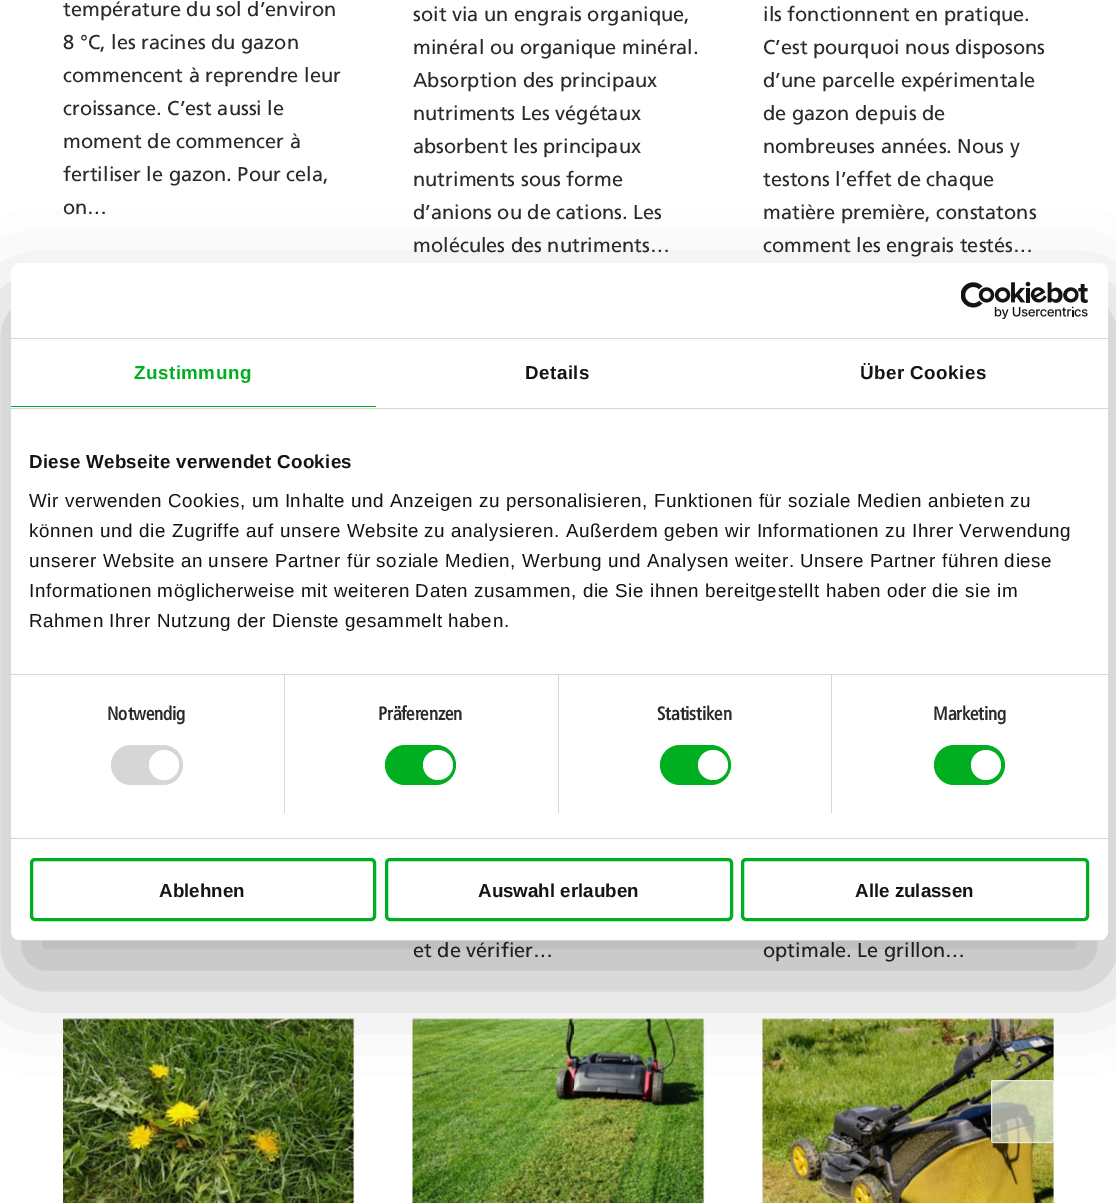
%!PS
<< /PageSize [1116 1204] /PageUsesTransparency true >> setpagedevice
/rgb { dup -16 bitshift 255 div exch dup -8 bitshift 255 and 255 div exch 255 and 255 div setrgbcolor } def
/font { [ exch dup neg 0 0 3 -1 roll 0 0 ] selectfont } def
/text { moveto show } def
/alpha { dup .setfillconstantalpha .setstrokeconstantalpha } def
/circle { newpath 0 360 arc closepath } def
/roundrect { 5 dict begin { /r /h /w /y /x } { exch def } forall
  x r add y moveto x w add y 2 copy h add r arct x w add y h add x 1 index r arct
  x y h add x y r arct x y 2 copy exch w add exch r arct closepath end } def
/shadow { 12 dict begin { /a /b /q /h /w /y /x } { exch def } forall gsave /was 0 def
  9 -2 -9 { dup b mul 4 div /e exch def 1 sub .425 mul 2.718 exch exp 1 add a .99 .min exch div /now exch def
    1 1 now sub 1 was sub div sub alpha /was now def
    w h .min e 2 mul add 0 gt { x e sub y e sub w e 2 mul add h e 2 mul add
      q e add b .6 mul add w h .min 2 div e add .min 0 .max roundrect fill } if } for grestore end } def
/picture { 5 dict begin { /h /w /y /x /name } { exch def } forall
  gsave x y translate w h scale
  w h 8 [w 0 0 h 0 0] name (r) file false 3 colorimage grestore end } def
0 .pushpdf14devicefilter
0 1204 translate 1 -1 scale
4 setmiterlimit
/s1 { /Frutiger-Regular 20 font 16#2A2A2A rgb } def
/s2 { /Frutiger-Bold 18.75 font 16#2A2A2A rgb } def
/s3 { /LiberationSans-Bold 18.75 font 16#141414 rgb } def
16#FFFFFF rgb
0 0 1116 1204 rectfill
gsave
63 0 291 226 rectclip
s1
(température du sol d’environ) 63 16 text
grestore
s1
(8 °C, les racines du gazon) 63 49 text
(commencent à reprendre leur) 63 82 text
(croissance. C’est aussi le) 63 115 text
(moment de commencer à) 63 148 text
(fertiliser le gazon. Pour cela,) 63 181 text
(on…) 63 214 text
(soit via un engrais organique,) 413 21 text
(minéral ou organique minéral.) 413 54 text
(Absorption des principaux) 413 87 text
(nutriments Les végétaux) 413 120 text
(absorbent les principaux) 413 153 text
(nutriments sous forme) 413 186 text
(d’anions ou de cations. Les) 413 219 text
(molécules des nutriments…) 413 252 text
(ils fonctionnent en pratique.) 763 21 text
(C’est pourquoi nous disposons) 763 54 text
(d’une parcelle expérimentale) 763 87 text
(de gazon depuis de) 763 120 text
(nombreuses années. Nous y) 763 153 text
(testons l’effet de chaque) 763 186 text
(matière première, constatons) 763 219 text
(comment les engrais testés…) 763 252 text
(et de vérifier…) 413 957 text
(optimale. Le grillon…) 763 957 text
16#EAEFDD rgb
63 1019 291 184 rectfill
(pic1.raw) 63 1018 292 185 picture
413 1019 291 184 rectfill
(pic2.raw) 412 1018 293 185 picture
763 1019 291 184 rectfill
(pic3.raw) 762 1018 292 185 picture
0.7 alpha
991 1080 63 63 2.5 roundrect fill
16#F8F8F8 rgb
991.5 1080.5 62 62 2 roundrect stroke
1 alpha
16#000000 rgb
11 303 1097 678 10 42.5 0.3 shadow
16#FFFFFF rgb
11 263 1097 678 10 roundrect fill
16#D6D6D6 rgb
11 338 1097 1 rectfill
(pic4.raw) 961 281 127 38 picture
11 408 1097 1 rectfill
16#00AF20 rgb
11 406 365 1 rectfill
/LiberationSans-Bold 18.75 font
134 379 moveto 0.5 0 (Zustimmung) ashow
16#141414 rgb
525 379 moveto 0.5 0 (Details) ashow
860 379 moveto 0.5 0 (Über Cookies) ashow
16#D6D6D6 rgb
11 674 1097 1 rectfill
16#141414 rgb
29 468 moveto 0.3 0 (Diese Webseite verwendet Cookies) ashow
/LiberationSans-Regular 18.75 font
29 507 moveto 0.62 0 (Wir verwenden Cookies, um Inhalte und Anzeigen zu personalisieren, Funktionen für soziale Medien anbieten zu) ashow
29 537 moveto 0.62 0 (können und die Zugriffe auf unsere Website zu analysieren. Außerdem geben wir Informationen zu Ihrer Verwendung) ashow
29 567 moveto 0.62 0 (unserer Website an unsere Partner für soziale Medien, Werbung und Analysen weiter. Unsere Partner führen diese) ashow
29 597 moveto 0.62 0 (Informationen möglicherweise mit weiteren Daten zusammen, die Sie ihnen bereitgestellt haben oder die sie im) ashow
29 627 moveto 0.62 0 (Rahmen Ihrer Nutzung der Dienste gesammelt haben.) ashow
16#D6D6D6 rgb
11 838 1097 1 rectfill
284 675 1 138 rectfill
s2
(Notwendig) 107 720 text
16#D6D6D6 rgb
111 745 72 40 20 roundrect fill
16#FFFFFF rgb
164 765 15 circle fill
16#D6D6D6 rgb
558 675 1 138 rectfill
s2
(Präferenzen) 378 720 text
16#00AF20 rgb
385 745 71 40 20 roundrect fill
16#FFFFFF rgb
438 765 15 circle fill
16#D6D6D6 rgb
831 675 1 138 rectfill
s2
(Statistiken) 657 720 text
16#00AF20 rgb
660 745 71 40 20 roundrect fill
16#FFFFFF rgb
713 765 15 circle fill
s2
(Marketing) 933 720 text
16#00AF20 rgb
934 745 71 40 20 roundrect fill
16#FFFFFF rgb
986 765 15 circle fill
gsave
11 263 1097 678 10 roundrect clip newpath
16#D6D6D6 rgb
11 940 1097 1 rectfill
grestore
16#00AF20 rgb
3 setlinewidth
31.5 859.5 343 60 3.5 roundrect stroke
s3
(Ablehnen) 159 897 text
16#00AF20 rgb
386.5 859.5 345 60 3.5 roundrect stroke
s3
(Auswahl erlauben) 478 897 text
16#00AF20 rgb
742.5 859.5 345 60 3.5 roundrect stroke
s3
(Alle zulassen) 855 897 text
(pic5.raw) 1018 1110 10 6 picture
.poppdf14devicefilter showpage
